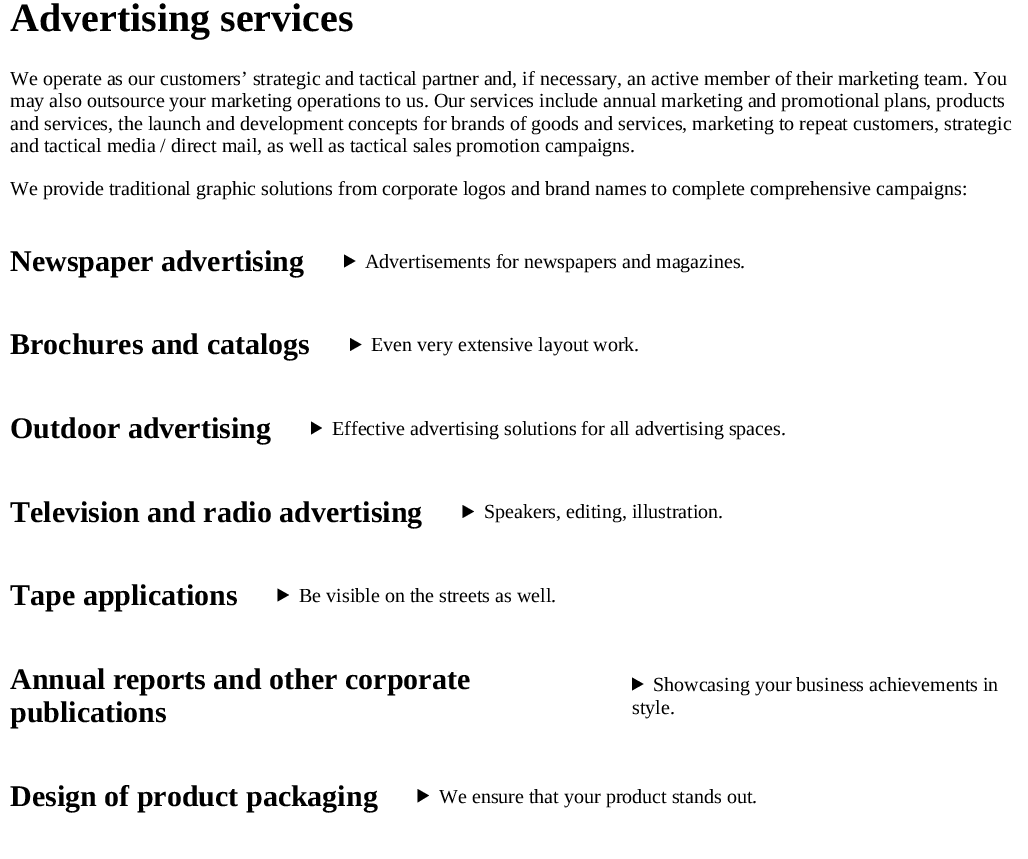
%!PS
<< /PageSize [1028 859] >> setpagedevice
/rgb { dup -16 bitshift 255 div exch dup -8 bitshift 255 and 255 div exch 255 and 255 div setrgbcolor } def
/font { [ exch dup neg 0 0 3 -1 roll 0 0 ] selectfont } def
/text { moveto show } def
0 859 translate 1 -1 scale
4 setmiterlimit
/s1 { /LiberationSerif-Bold 40 font 16#000000 rgb } def
/s2 { /LiberationSerif-Regular 20 font 16#000000 rgb } def
/s3 { /LiberationSerif-Bold 30 font 16#000000 rgb } def
16#FFFFFF rgb
0 0 1028 859 rectfill
s1
(Advertising services) 10 31 text
s2
(We operate as our customers’ strategic and tactical partner and, if necessary, an active member of their marketing team. You) 10 85 text
(may also outsource your marketing operations to us. Our services include annual marketing and promotional plans, products) 10 107 text
(and services, the launch and development concepts for brands of goods and services, marketing to repeat customers, strategic) 10 130 text
(and tactical media / direct mail, as well as tactical sales promotion campaigns.) 10 152 text
(We provide traditional graphic solutions from corporate logos and brand names to complete comprehensive campaigns:) 10 195 text
s3
(Newspaper advertising) 10 271 text
344 254.5 moveto 355.5 261 lineto 344 267.5 lineto closepath fill
s2
(Advertisements for newspapers and magazines.) 365 268 text
s3
(Brochures and catalogs) 10 354 text
350 338 moveto 361.5 344.5 lineto 350 351 lineto closepath fill
s2
(Even very extensive layout work.) 371 351 text
s3
(Outdoor advertising) 10 438 text
311 421.5 moveto 322 428 lineto 311 434.5 lineto closepath fill
s2
(Effective advertising solutions for all advertising spaces.) 332 435 text
s3
(Television and radio advertising) 10 522 text
462.5 505 moveto 474 511.5 lineto 462.5 518 lineto closepath fill
s2
(Speakers, editing, illustration.) 484 518 text
s3
(Tape applications) 10 605 text
277.5 588.5 moveto 289 595 lineto 277.5 601.5 lineto closepath fill
s2
(Be visible on the streets as well.) 299 602 text
s3
(Annual reports and other corporate) 10 689 text
(publications) 10 722 text
632 677.5 moveto 643.5 684 lineto 632 690.5 lineto closepath fill
s2
(Showcasing your business achievements in) 653 691 text
(style.) 632 714 text
s3
(Design of product packaging) 10 806 text
417.5 789 moveto 429 795.5 lineto 417.5 802.5 lineto closepath fill
s2
(We ensure that your product stands out.) 439 803 text
showpage
